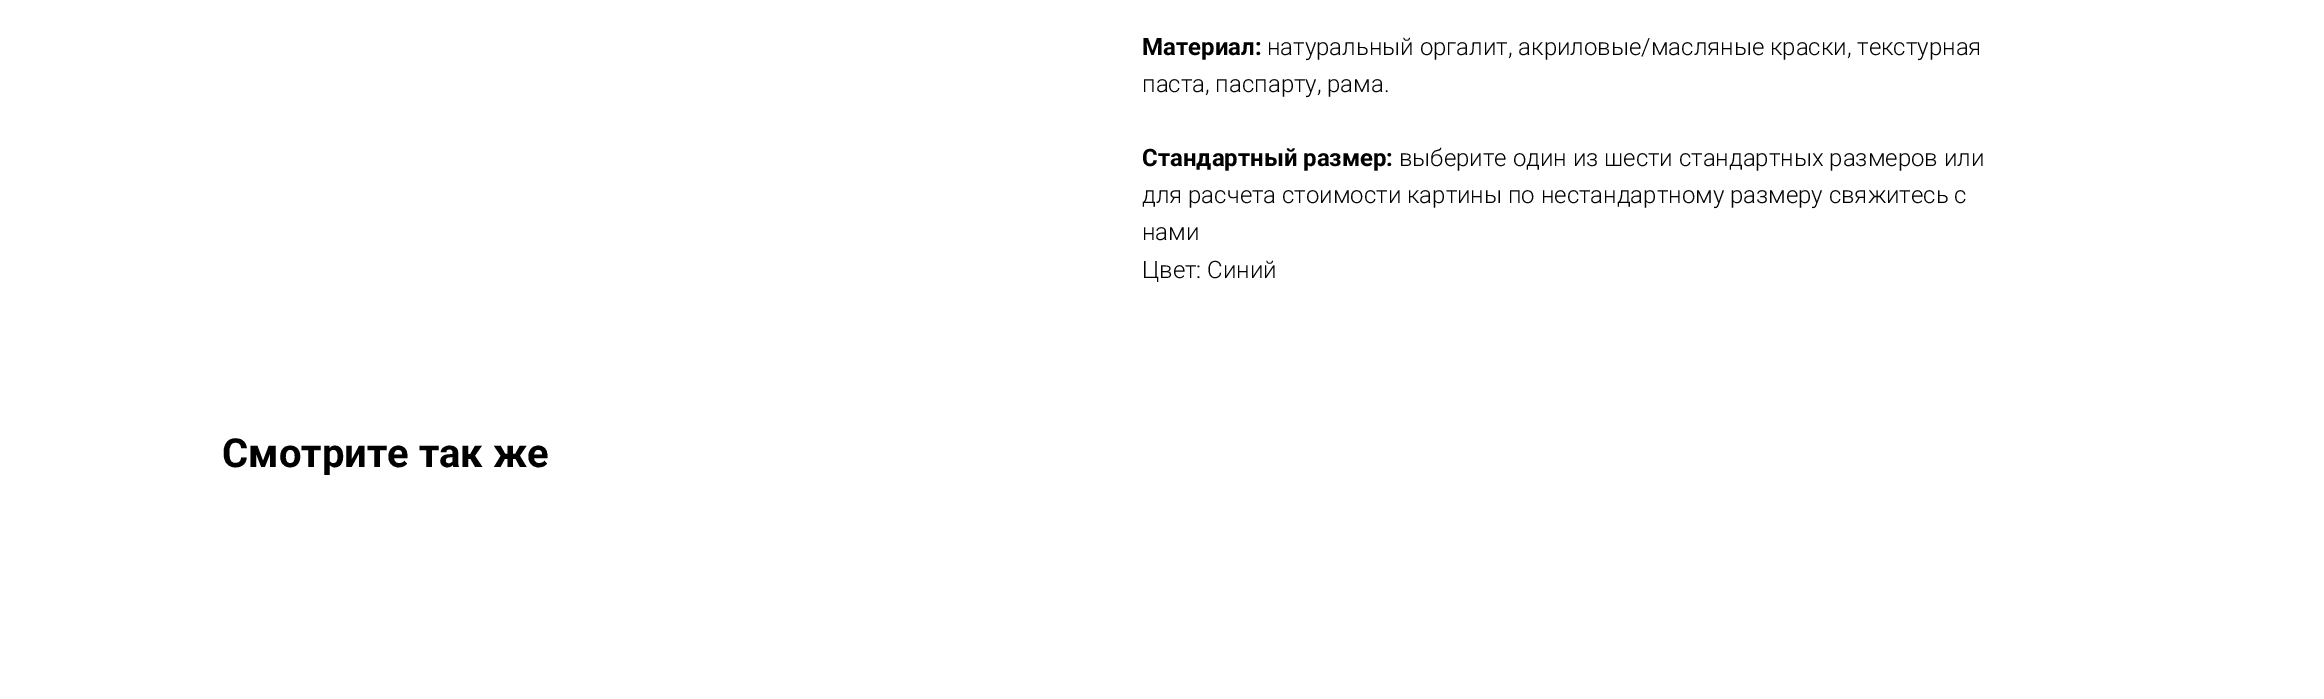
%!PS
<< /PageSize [2324 699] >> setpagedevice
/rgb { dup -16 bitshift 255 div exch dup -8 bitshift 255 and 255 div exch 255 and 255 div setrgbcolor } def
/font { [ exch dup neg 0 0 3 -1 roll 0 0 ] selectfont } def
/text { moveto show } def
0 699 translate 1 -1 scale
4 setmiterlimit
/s1 { /Roboto-Bold 24 font 16#000000 rgb } def
/s2 { /Roboto-Light 24 font 16#000000 rgb } def
/s3 { /Roboto-Bold 40 font 16#000000 rgb } def
16#FFFFFF rgb
0 0 2324 699 rectfill
s1
(Материал:) 1142 55 text
s2
(натуральный оргалит, акриловые/масляные краски, текстурная) 1267 55 text
(паста, паспарту, рама.) 1142 92 text
s1
(Стандартный размер:) 1142 166 text
s2
(выберите один из шести стандартных размеров или) 1399 166 text
(для расчета стоимости картины по нестандартному размеру свяжитесь с) 1142 203 text
(нами) 1142 240 text
(Цвет: Синий) 1142 278 text
s3
(Смотрите так же) 222 467 text
showpage
